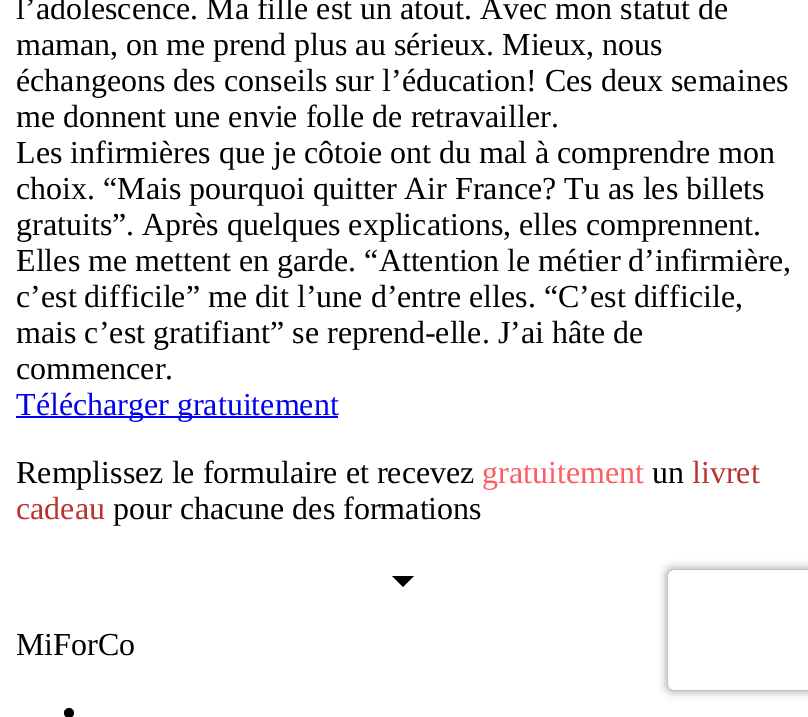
%!PS
<< /PageSize [808 717] /PageUsesTransparency true >> setpagedevice
/rgb { dup -16 bitshift 255 div exch dup -8 bitshift 255 and 255 div exch 255 and 255 div setrgbcolor } def
/font { [ exch dup neg 0 0 3 -1 roll 0 0 ] selectfont } def
/text { moveto show } def
/alpha { dup .setfillconstantalpha .setstrokeconstantalpha } def
/circle { newpath 0 360 arc closepath } def
/roundrect { 5 dict begin { /r /h /w /y /x } { exch def } forall
  x r add y moveto x w add y 2 copy h add r arct x w add y h add x 1 index r arct
  x y h add x y r arct x y 2 copy exch w add exch r arct closepath end } def
/shadow { 12 dict begin { /a /b /q /h /w /y /x } { exch def } forall gsave /was 0 def
  9 -2 -9 { dup b mul 4 div /e exch def 1 sub .425 mul 2.718 exch exp 1 add a .99 .min exch div /now exch def
    1 1 now sub 1 was sub div sub alpha /was now def
    w h .min e 2 mul add 0 gt { x e sub y e sub w e 2 mul add h e 2 mul add
      q e add b .6 mul add w h .min 2 div e add .min 0 .max roundrect fill } if } for grestore end } def
0 .pushpdf14devicefilter
0 717 translate 1 -1 scale
4 setmiterlimit
/s1 { /LiberationSerif-Regular 32 font 16#000000 rgb } def
/s2 { /LiberationSerif-Regular 32 font 16#0000EE rgb } def
/s3 { /LiberationSerif-Regular 32 font 16#FF5C61 rgb } def
/s4 { /LiberationSerif-Regular 32 font 16#B83230 rgb } def
16#FFFFFF rgb
0 0 808 717 rectfill
s1
(l’adolescence. Ma fille est un atout. Avec mon statut de) 16 19 text
(maman, on me prend plus au sérieux. Mieux, nous) 16 55 text
(échangeons des conseils sur l’éducation! Ces deux semaines) 16 91 text
(me donnent une envie folle de retravailler.) 16 127 text
(Les infirmières que je côtoie ont du mal à comprendre mon) 16 163 text
(choix. “Mais pourquoi quitter Air France? Tu as les billets) 16 199 text
(gratuits”. Après quelques explications, elles comprennent.) 16 235 text
(Elles me mettent en garde. “Attention le métier d’infirmière,) 16 271 text
(c’est difficile” me dit l’une d’entre elles. “C’est difficile,) 16 307 text
(mais c’est gratifiant” se reprend-elle. J’ai hâte de) 16 343 text
(commencer.) 16 379 text
16#0000EE rgb
16 416 322 2 rectfill
(Télécharger gratuitement) 16 415 text
s1
(Remplissez le formulaire et recevez) 16 483 text
s3
(gratuitement) 482 483 text
s1
(un) 652 483 text
s4
(livret) 692 483 text
(cadeau) 16 519 text
s1
(pour chacune des formations) 113 519 text
403 587 moveto 392 576 lineto 414 576 lineto closepath fill
(MiForCo) 16 655 text
69 713 5 circle fill
gsave
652 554 moveto 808 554 lineto 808 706 lineto 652 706 lineto closepath 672 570 moveto 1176 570 lineto 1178 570 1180 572 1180 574 curveto 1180 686 lineto 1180 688 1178 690 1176 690 curveto 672 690 lineto 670 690 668 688 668 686 curveto 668 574 lineto 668 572 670 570 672 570 curveto closepath eoclip newpath
16#808080 rgb
668 570 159 120 4 5 1 shadow
grestore
.poppdf14devicefilter showpage
